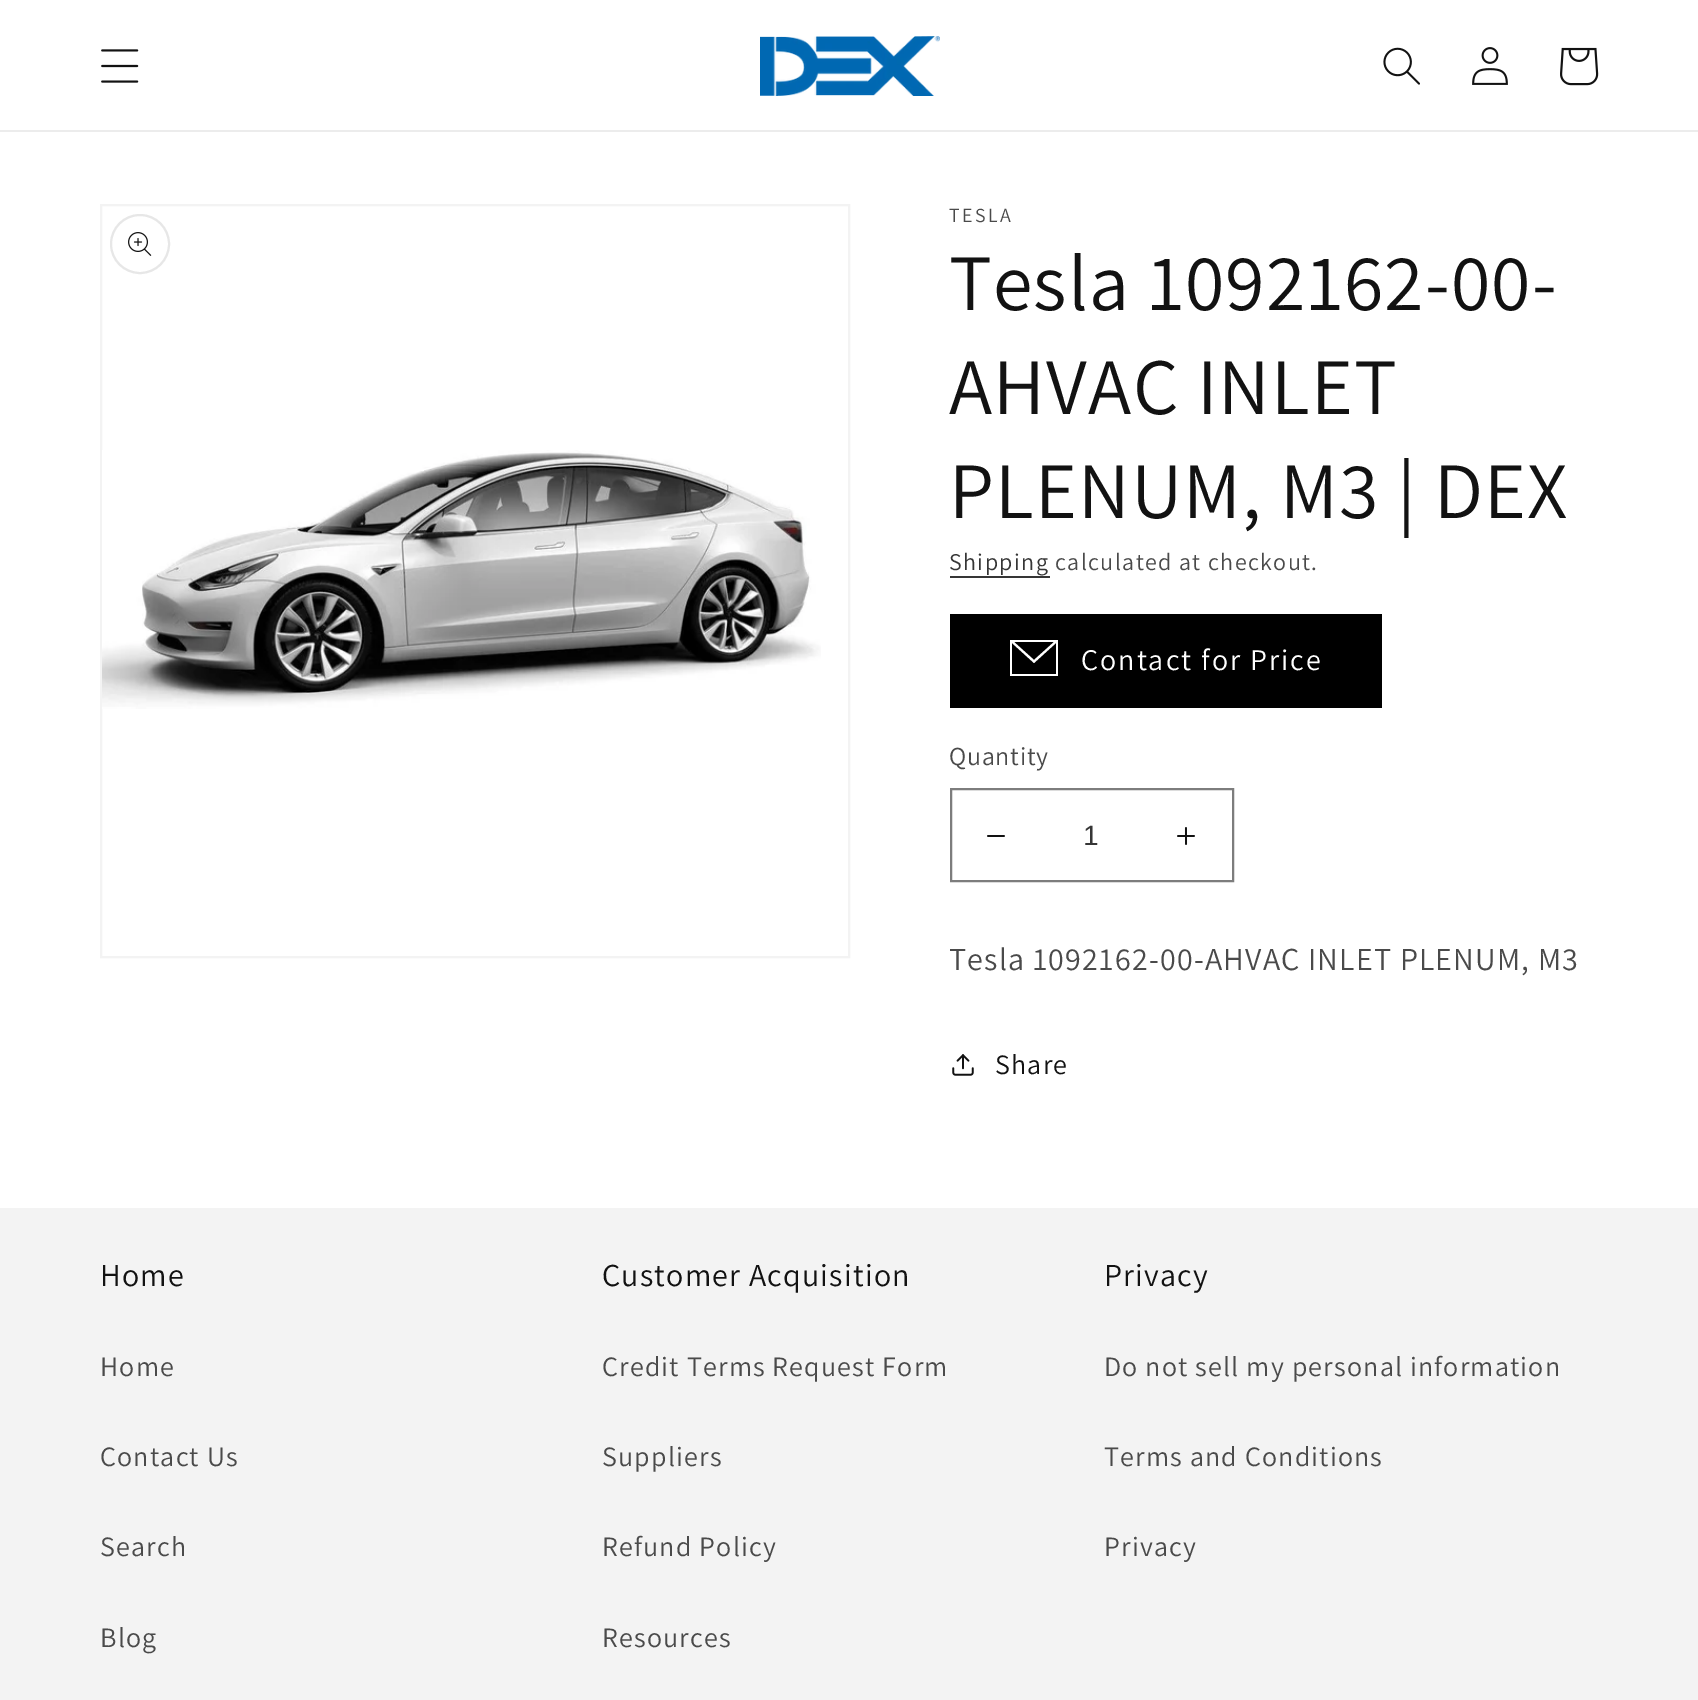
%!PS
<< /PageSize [1698 1700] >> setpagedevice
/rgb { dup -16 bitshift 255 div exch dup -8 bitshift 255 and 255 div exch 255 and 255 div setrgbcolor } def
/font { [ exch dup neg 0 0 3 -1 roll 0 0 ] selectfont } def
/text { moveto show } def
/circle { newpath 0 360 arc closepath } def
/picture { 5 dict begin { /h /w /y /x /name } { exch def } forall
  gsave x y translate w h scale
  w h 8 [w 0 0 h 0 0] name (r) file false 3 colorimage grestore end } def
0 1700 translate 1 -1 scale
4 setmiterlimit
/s1 { /LiberationSans-Regular 28 font 16#363636 rgb } def
16#FFFFFF rgb
0 0 1698 1700 rectfill
16#ECECEC rgb
0 130 1698 2 rectfill
(pic1.raw) 101 49 38 34 picture
(pic2.raw) 760 36 180 60 picture
(pic3.raw) 1383 47 37 38 picture
(pic4.raw) 1472 47 36 38 picture
(pic5.raw) 1560 47 39 39 picture
16#F3F3F3 rgb
2 setlinewidth
101 205 748 752 rectstroke
(pic6.raw) 102 450 719 259 picture
16#E7E7E7 rgb
140 244 29 circle stroke
(pic7.raw) 128 232 24 24 picture
/Assistant-Regular 20 font
16#4A4A4A rgb
949 222 moveto 2.5 0 (TESLA) ashow
/Assistant-Regular 80 font
16#121212 rgb
949 310 moveto 1.2 0 (Tesla 1092162-00-) ashow
949 414 moveto 1.2 0 (AHVAC INLET) ashow
949 518 moveto 1.2 0 (PLENUM, M3 | DEX) ashow
/Assistant-Regular 24 font
16#363636 rgb
949 570 moveto 1.4 0 (Shipping) ashow
950 576 100 2 rectfill
16#4A4A4A rgb
1055 570 moveto 1.4 0 (calculated at checkout.) ashow
16#000000 rgb
950 614 432 94 rectfill
16#FFFFFF rgb
1058 676 moveto 1010 676 lineto 1010 640 lineto 1058 640 lineto closepath 1012 643 moveto 1012 674 lineto 1056 674 lineto 1056 643 lineto 1034 663 lineto closepath 1054 642 moveto 1014 642 lineto 1034 660 lineto closepath eofill
/Assistant-Regular 30 font
1081 670 moveto 2 0 (Contact for Price) ashow
/Assistant-Regular 26 font
16#4A4A4A rgb
949 765 moveto 0.75 0 (Quantity) ashow
(pic8.raw) 987 835 18 2 picture
(pic9.raw) 1177 827 18 18 picture
16#7D7D7D rgb
951 789 282 92 rectstroke
s1
(1) 1083 845 text
/Assistant-Regular 32 font
16#4A4A4A rgb
949 970 moveto 1.2 0 (Tesla 1092162-00-AHVAC INLET PLENUM, M3) ashow
(pic10.raw) 952 1054 22 22 picture
/Assistant-Regular 28 font
16#121212 rgb
995 1074 moveto 1.2 0 (Share) ashow
16#F3F3F3 rgb
0 1208 1698 492 rectfill
/Assistant-Regular 32 font
16#121212 rgb
100 1286 moveto 1.2 0 (Home) ashow
/Assistant-Regular 28 font
16#4A4A4A rgb
100 1376 moveto 1.2 0 (Home) ashow
100 1466 moveto 1.2 0 (Contact Us) ashow
100 1556 moveto 1.2 0 (Search) ashow
100 1647 moveto 1.2 0 (Blog) ashow
/Assistant-Regular 32 font
16#121212 rgb
602 1286 moveto 1.2 0 (Customer Acquisition) ashow
/Assistant-Regular 28 font
16#4A4A4A rgb
602 1376 moveto 1.2 0 (Credit Terms Request Form) ashow
602 1466 moveto 1.2 0 (Suppliers) ashow
602 1556 moveto 1.2 0 (Refund Policy) ashow
602 1647 moveto 1.2 0 (Resources) ashow
/Assistant-Regular 32 font
16#121212 rgb
1104 1286 moveto 1.2 0 (Privacy) ashow
/Assistant-Regular 28 font
16#4A4A4A rgb
1104 1376 moveto 1.2 0 (Do not sell my personal information) ashow
1104 1466 moveto 1.2 0 (Terms and Conditions) ashow
1104 1556 moveto 1.2 0 (Privacy) ashow
showpage
